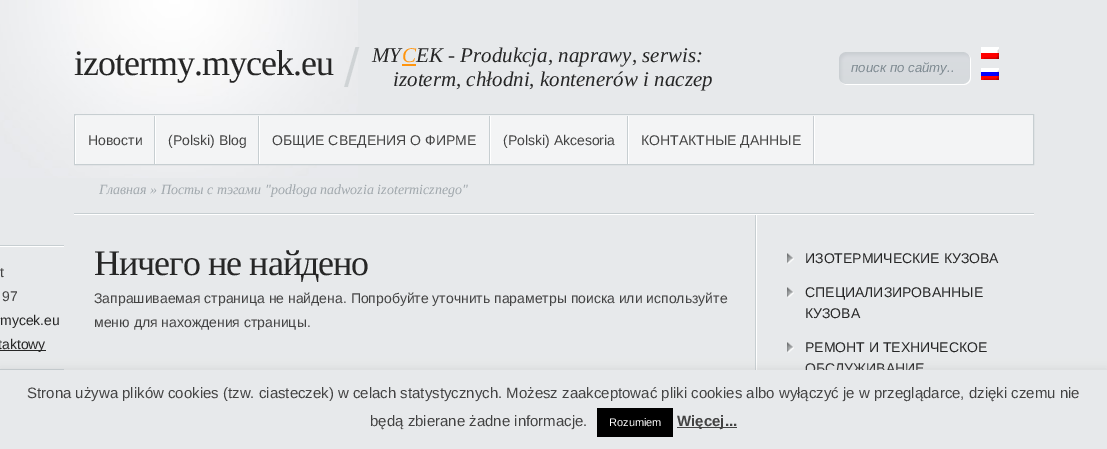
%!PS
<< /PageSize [1107 449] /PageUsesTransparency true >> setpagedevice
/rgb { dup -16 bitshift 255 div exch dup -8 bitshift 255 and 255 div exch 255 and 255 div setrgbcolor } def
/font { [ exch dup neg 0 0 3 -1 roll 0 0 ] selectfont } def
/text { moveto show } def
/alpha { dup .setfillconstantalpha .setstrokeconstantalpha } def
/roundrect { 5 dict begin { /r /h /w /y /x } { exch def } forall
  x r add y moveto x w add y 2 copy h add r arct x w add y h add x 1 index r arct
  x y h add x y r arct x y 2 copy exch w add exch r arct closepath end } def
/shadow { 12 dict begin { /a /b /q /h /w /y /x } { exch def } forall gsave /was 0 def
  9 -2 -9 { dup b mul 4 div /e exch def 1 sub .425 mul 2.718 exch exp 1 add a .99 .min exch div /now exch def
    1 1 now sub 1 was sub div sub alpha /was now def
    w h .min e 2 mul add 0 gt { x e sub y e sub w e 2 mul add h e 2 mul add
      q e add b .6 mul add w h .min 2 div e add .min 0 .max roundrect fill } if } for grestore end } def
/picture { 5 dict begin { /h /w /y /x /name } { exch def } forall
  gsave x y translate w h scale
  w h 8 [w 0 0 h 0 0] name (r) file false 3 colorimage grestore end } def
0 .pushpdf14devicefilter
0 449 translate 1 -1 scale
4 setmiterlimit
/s1 { /LiberationSerif-Italic 21 font 16#262626 rgb } def
/s2 { /LiberationSerif-Italic 21 font 16#FF950E rgb } def
/s3 { /LiberationSans-Italic 13.25 font 16#7D8990 rgb } def
/s4 { /LiberationSans-Regular 14 font 16#434343 rgb } def
/s5 { /LiberationSerif-Italic 14 font 16#A0A7AC rgb } def
/s6 { /LiberationSans-Regular 14 font 16#262626 rgb } def
/s7 { /LiberationSans-Regular 15 font 16#434343 rgb } def
/s8 { /LiberationSans-Regular 11 font 16#FFFFFF rgb } def
/s9 { /LiberationSans-Bold 15 font 16#434343 rgb } def
16#E7E9EB rgb
0 0 1107 449 rectfill
(pic1.raw) 0 0 358 178 picture
/LiberationSerif-Regular 36 font
16#262626 rgb
74 75 moveto -1 0 (izotermy.mycek.eu) ashow
(pic2.raw) 344 47 16 40 picture
s1
(MY) 372 62 text
s2
(C) 402 62 text
402 64 14 2 rectfill
s1
(EK - Produkcja, naprawy, serwis:) 416 62 text
(izoterm, chłodni, kontenerów i naczep) 393 86 text
(pic3.raw) 839 52 132 33 picture
s3
(поиск по сайту..) 851 72 text
(pic4.raw) 981 47 18 12 picture
(pic5.raw) 981 68 18 12 picture
16#F3F4F5 rgb
76 116 957 48 rectfill
16#FFFFFF rgb
74 115 960 1 rectfill
16#C7CED1 rgb
74.5 114.5 959 50 rectstroke
154 116 1 48 rectfill
16#FFFFFF rgb
75 116 1 48 rectfill
s4
(Новости) 88 145 text
16#C7CED1 rgb
258 116 1 48 rectfill
16#FFFFFF rgb
155 116 1 48 rectfill
s4
(\(Polski\) Blog) 168 145 text
16#C7CED1 rgb
489 116 1 48 rectfill
16#FFFFFF rgb
259 116 1 48 rectfill
s4
(ОБЩИЕ СВЕДЕНИЯ О ФИРМЕ) 272 145 text
16#C7CED1 rgb
627 116 1 48 rectfill
16#FFFFFF rgb
490 116 1 48 rectfill
s4
(\(Polski\) Akcesoria) 503 145 text
(pic6.raw) 813 116 2 48 picture
16#FFFFFF rgb
628 116 1 48 rectfill
s4
(КОНТАКТНЫЕ ДАННЫЕ) 641 145 text
(pic7.raw) 74 213 960 2 picture
s5
(Главная » Посты с тэгами "podłoga nadwozia izotermicznego") 99 194 text
(pic8.raw) 0 245 64 2 picture
(pic9.raw) 0 369 64 1 picture
s4
(t) 0 277 text
(97) 2 301 text
s6
(mycek.eu) 0 325 text
0 350 46 1 rectfill
(taktowy) -2 349 text
(pic10.raw) 755 215 2 155 picture
/LiberationSerif-Regular 36 font
94 275 moveto -1 0 (Ничего не найдено) ashow
s4
(Запрашиваемая страница не найдена. Попробуйте уточнить параметры поиска или используйте) 94 303 text
(меню для нахождения страницы.) 94 327 text
(pic11.raw) 787 253 7 11 picture
s6
(ИЗОТЕРМИЧЕСКИЕ КУЗОВА) 805 263 text
(pic11.raw) 787 287 7 11 picture
(СПЕЦИАЛИЗИРОВАННЫЕ) 805 297 text
(КУЗОВА) 805 318 text
(pic11.raw) 787 342 7 11 picture
(РЕМОНТ И ТЕХНИЧЕСКОЕ) 805 352 text
(ОБСЛУЖИВАНИЕ) 805 373 text
16#ACABAB rgb
0 369 1107 79 0 5 0.3 shadow
16#E7E9EB rgb
0 370 1107 79 rectfill
s7
(Strona używa plików cookies \(tzw. ciasteczek\) w celach statystycznych. Możesz zaakceptować pliki cookies albo wyłączyć je w przeglądarce, dzięki czemu nie) 27 398 text
(będą zbierane żadne informacje.) 370 426 text
16#000000 rgb
597 408 76 29 rectfill
s8
(Rozumiem) 609 426 text
16#444444 rgb
677 427 60 1 rectfill
s9
(Więcej...) 677 426 text
.poppdf14devicefilter showpage
